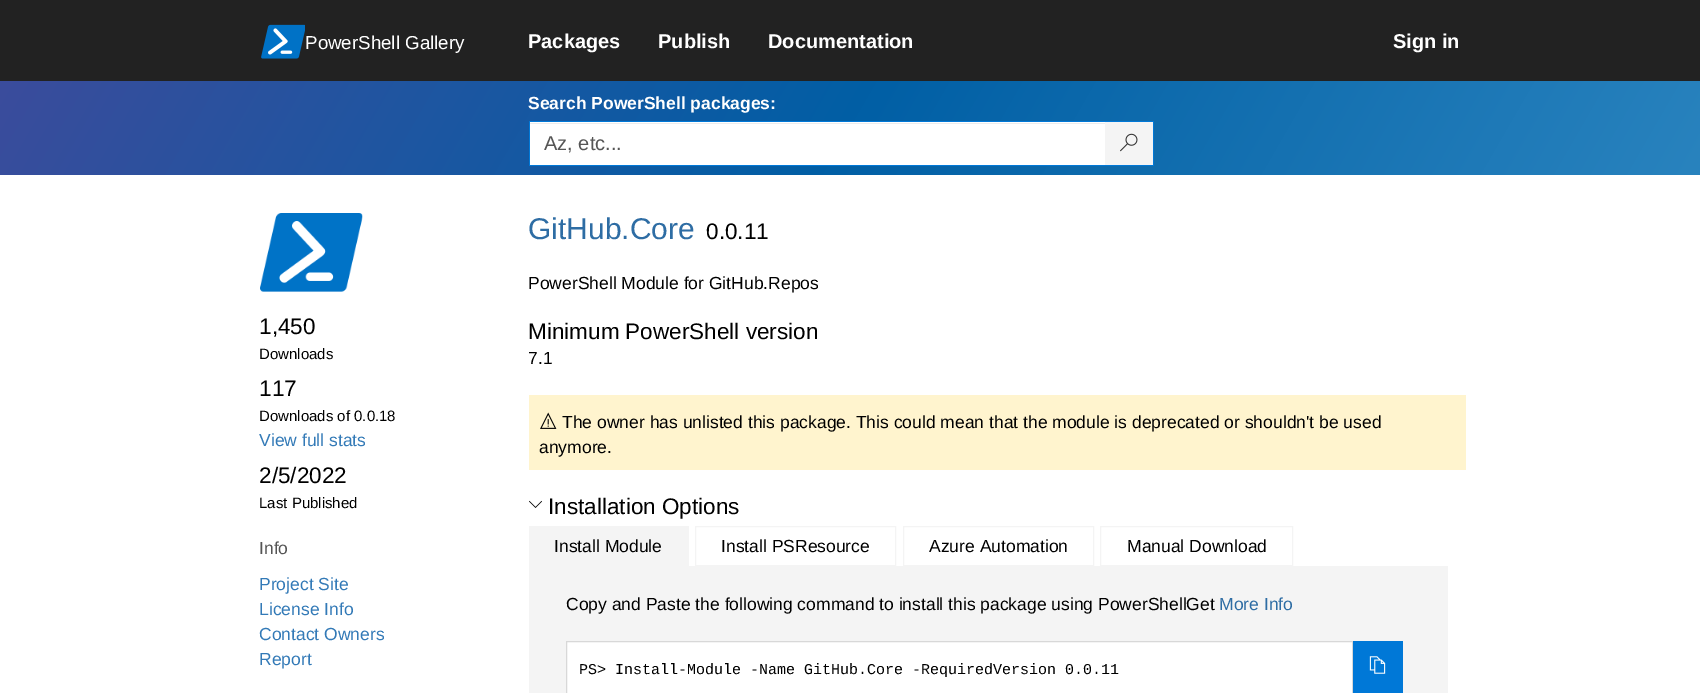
%!PS
<< /PageSize [1700 693] >> setpagedevice
/rgb { dup -16 bitshift 255 div exch dup -8 bitshift 255 and 255 div exch 255 and 255 div setrgbcolor } def
/font { [ exch dup neg 0 0 3 -1 roll 0 0 ] selectfont } def
/text { moveto show } def
/picture { 5 dict begin { /h /w /y /x /name } { exch def } forall
  gsave x y translate w h scale
  w h 8 [w 0 0 h 0 0] name (r) file false 3 colorimage grestore end } def
0 693 translate 1 -1 scale
4 setmiterlimit
/s1 { /LiberationSans-Regular 18.75 font 16#FFFFFF rgb } def
/s2 { /LiberationSans-Bold 20 font 16#FFFFFF rgb } def
/s3 { /LiberationSans-Bold 17.5 font 16#FFFFFF rgb } def
/s4 { /LiberationSans-Regular 20 font 16#555555 rgb } def
/s5 { /LiberationSans-Regular 22.5 font 16#000000 rgb } def
/s6 { /LiberationSans-Regular 15 font 16#000000 rgb } def
/s7 { /LiberationSans-Regular 17.5 font 16#337AB7 rgb } def
/s8 { /LiberationSans-Regular 17.5 font 16#555555 rgb } def
/s9 { /LiberationSans-Regular 30 font 16#2E6DA4 rgb } def
/s10 { /LiberationSans-Regular 17.5 font 16#000000 rgb } def
/s11 { /LiberationSans-Regular 17.5 font 16#2E6DA4 rgb } def
/s12 { /LiberationMono-Regular 15 font 16#000000 rgb } def
16#FFFFFF rgb
0 0 1700 693 rectfill
16#222222 rgb
0 0 1700 81 rectfill
(pic1.raw) 261 24 44 35 picture
s1
(PowerShell Gallery) 305 49 text
s2
(Packages) 528 48 text
(Publish) 658 48 text
(Documentation) 768 48 text
(Sign in) 1393 48 text
gsave 0 81 moveto 1700 81 lineto 1700 175 lineto 0 175 lineto closepath clip newpath
<< /ShadingType 2 /ColorSpace /DeviceRGB /Coords [192 -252 1508 508] /Extend [true true] /Function << /FunctionType 3 /Domain [0 1] /Functions [<< /FunctionType 2 /Domain [0 1] /C0 [0.231 0.298 0.612] /C1 [0.004 0.373 0.647] /N 1 >> << /FunctionType 2 /Domain [0 1] /C0 [0.004 0.373 0.647] /C1 [0.161 0.514 0.745] /N 1 >>] /Bounds [0.5] /Encode [0 1 0 1] >> >> shfill grestore
s3
(Search PowerShell packages:) 528 109 text
530 122 575 43 rectfill
16#ECECEC rgb
530 123 576 1 rectfill
16#0078D7 rgb
529 121 625 1 rectfill
529 165 577 1 rectfill
529 121 1 45 rectfill
s4
(Az, etc...) 544 150 text
16#F4F4F4 rgb
1105 122 48 43 rectfill
16#0078D7 rgb
1153 121 1 45 rectfill
1105 165 49 1 rectfill
(pic2.raw) 1120 133 18 19 picture
(pic3.raw) 260 213 103 79 picture
s5
(1,450) 259 334 text
s6
(Downloads) 259 359 text
s5
(117) 259 396 text
s6
(Downloads of 0.0.18) 259 421 text
s7
(View full stats) 259 446 text
s5
(2/5/2022) 259 483 text
s6
(Last Published) 259 508 text
s8
(Info) 259 554 text
s7
(Project Site) 259 590 text
(License Info) 259 615 text
(Contact Owners) 259 640 text
(Report) 259 665 text
s9
(GitHub.Core) 528 239 text
s5
(0.0.11) 706 239 text
s10
(PowerShell Module for GitHub.Repos) 528 289 text
s5
(Minimum PowerShell version) 528 339 text
s10
(7.1) 528 364 text
16#FFF4CE rgb
529 395 937 75 rectfill
(pic4.raw) 540 412 17 17 picture
s10
(The owner has unlisted this package. This could mean that the module is deprecated or shouldn't be used) 562 428 text
(anymore.) 539 453 text
(pic5.raw) 529 500 13 8 picture
s5
(Installation Options) 548 514 text
16#F4F4F4 rgb
529 566 919 127 rectfill
529 526 160 40 rectfill
s10
(Install Module) 554 552 text
16#F4F4F4 rgb
695.5 526.5 200 39 rectstroke
s10
(Install PSResource) 721 552 text
16#F4F4F4 rgb
903.5 526.5 190 39 rectstroke
s10
(Azure Automation) 929 552 text
16#F4F4F4 rgb
1100.5 526.5 192 39 rectstroke
s10
(Manual Download) 1127 552 text
(Copy and Paste the following command to install this package using PowerShellGet) 566 610 text
s11
(More Info) 1219 610 text
16#FFFFFF rgb
566.5 641.5 moveto 1352.5 641.5 lineto 1352.5 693.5 lineto 566.5 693.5 lineto closepath gsave fill grestore
16#D8D8D8 rgb
stroke
s12
(PS> Install-Module -Name GitHub.Core -RequiredVersion 0.0.11) 579 674 text
16#0078D7 rgb
1353 641 50 52 rectfill
(pic6.raw) 1369 656 17 18 picture
showpage
